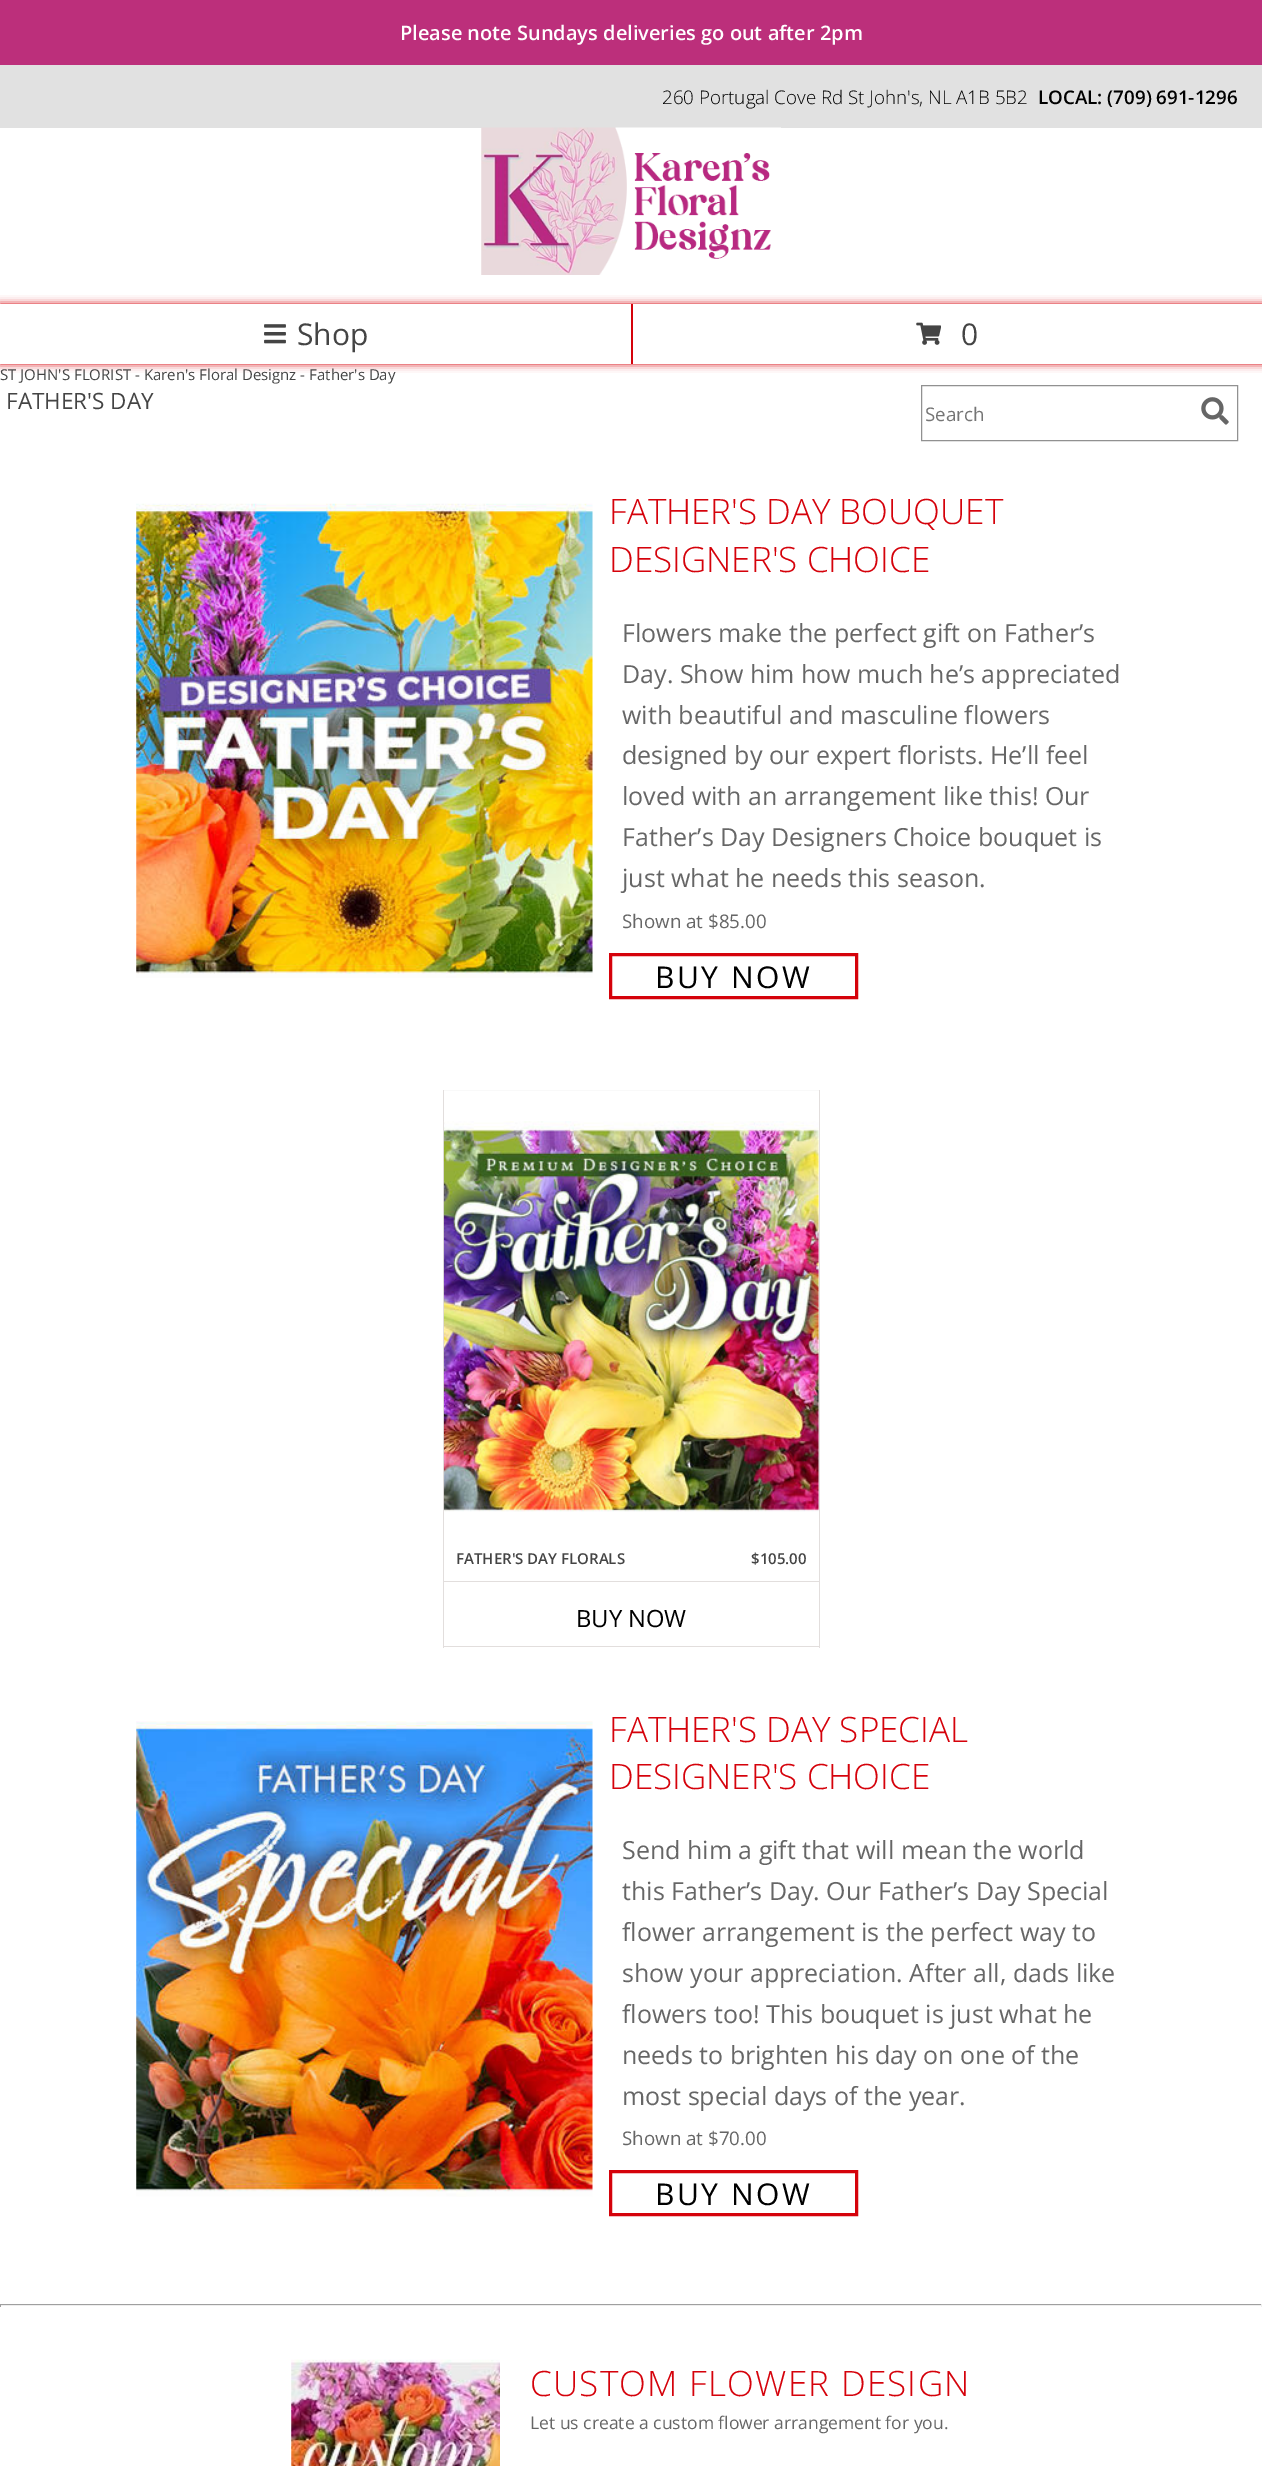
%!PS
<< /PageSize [1262 2466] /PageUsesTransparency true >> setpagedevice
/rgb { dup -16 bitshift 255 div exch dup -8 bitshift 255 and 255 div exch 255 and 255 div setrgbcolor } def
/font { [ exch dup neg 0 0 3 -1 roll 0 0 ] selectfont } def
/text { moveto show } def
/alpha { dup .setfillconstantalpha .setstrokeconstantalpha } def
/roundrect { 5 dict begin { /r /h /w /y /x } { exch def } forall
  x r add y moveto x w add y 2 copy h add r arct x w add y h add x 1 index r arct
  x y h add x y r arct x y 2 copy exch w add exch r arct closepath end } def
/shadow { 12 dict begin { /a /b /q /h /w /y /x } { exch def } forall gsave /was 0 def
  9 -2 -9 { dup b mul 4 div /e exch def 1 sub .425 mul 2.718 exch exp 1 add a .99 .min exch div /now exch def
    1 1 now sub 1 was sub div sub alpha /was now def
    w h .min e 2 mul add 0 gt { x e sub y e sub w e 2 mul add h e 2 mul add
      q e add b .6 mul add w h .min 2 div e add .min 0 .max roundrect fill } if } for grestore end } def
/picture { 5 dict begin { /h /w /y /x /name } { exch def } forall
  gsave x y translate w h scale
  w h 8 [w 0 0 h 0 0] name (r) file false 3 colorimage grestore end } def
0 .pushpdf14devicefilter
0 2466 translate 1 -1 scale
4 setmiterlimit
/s1 { /OpenSans-SemiBold 20 font 16#FFFFFF rgb } def
/s2 { /OpenSans-Light 18.75 font 16#000000 rgb } def
/s3 { /OpenSans-SemiBold 18.75 font 16#000000 rgb } def
/s4 { /OpenSans-Regular 30 font 16#444444 rgb } def
/s5 { /OpenSans-Regular 15 font 16#444444 rgb } def
/s6 { /OpenSans-Regular 22.5 font 16#444444 rgb } def
/s7 { /OpenSans-Regular 18.75 font 16#757575 rgb } def
/s8 { /OpenSans-Light 35 font 16#D5020B rgb } def
/s9 { /OpenSans-Regular 25 font 16#666666 rgb } def
/s10 { /OpenSans-Regular 18.75 font 16#666666 rgb } def
/s11 { /OpenSans-SemiBold 15 font 16#444444 rgb } def
/s12 { /OpenSans-Regular 23.75 font 16#000000 rgb } def
/s13 { /OpenSans-Regular 17.5 font 16#666666 rgb } def
16#FFFFFF rgb
0 0 1262 2466 rectfill
16#BC2F7B rgb
0 0 1262 65 rectfill
s1
(Please note Sundays deliveries go out after 2pm) 400 40 text
16#E1E1E1 rgb
0 65 1262 63 rectfill
s2
(260 Portugal Cove Rd St John's, NL A1B 5B2) 662 104 text
s3
(LOCAL: \(709\) 691-1296) 1038 104 text
(pic1.raw) 481 127 300 148 picture
16#D5020B rgb
0 304 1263 60 0 4 1 shadow
631 304 2 60 rectfill
16#FFFFFF rgb
0 304 631 60 rectfill
(pic2.raw) 264 324 22 20 picture
s4
(Shop) 297 345 text
16#FFFFFF rgb
633 304 629 60 rectfill
(pic3.raw) 916 322 25 23 picture
s4
(0) 961 345 text
s5
(ST JOHN'S FLORIST - Karen's Floral Designz - Father's Day) 0 380 text
s6
(FATHER'S DAY) 6 409 text
16#919191 rgb
921.5 385.5 316 55 rectstroke
s7
(Search) 925 421 text
(pic4.raw) 1201 397 28 28 picture
(pic5.raw) 136 503 457 475 picture
s8
(FATHER'S DAY BOUQUET) 609 524 text
(DESIGNER'S CHOICE) 609 572 text
s9
(Flowers make the perfect gift on Father’s) 622 642 text
(Day. Show him how much he’s appreciated) 622 683 text
(with beautiful and masculine flowers) 622 724 text
(designed by our expert florists. He’ll feel) 622 764 text
(loved with an arrangement like this! Our) 622 805 text
(Father’s Day Designers Choice bouquet is) 622 846 text
(just what he needs this season.) 622 887 text
s10
(Shown at $85.00) 622 928 text
16#D5020B rgb
3 setlinewidth
610.5 954.5 246 43 rectstroke
/OpenSans-Regular 30 font
16#000000 rgb
655 988 moveto 2.5 0 (BUY NOW) ashow
16#F9F9F9 rgb
443 1090 377 1 rectfill
16#E2DEDD rgb
819 1090 1 558 rectfill
443 1646 377 1 rectfill
443 1090 1 558 rectfill
(pic6.raw) 443 1121 376 391 picture
s11
(FATHER'S DAY FLORALS) 456 1564 text
($105.00) 751 1564 text
16#E2DEDD rgb
444 1581 375 1 rectfill
s12
(BUY NOW) 576 1627 text
(pic7.raw) 136 1721 457 476 picture
s8
(FATHER'S DAY SPECIAL) 609 1742 text
(DESIGNER'S CHOICE) 609 1789 text
s9
(Send him a gift that will mean the world) 622 1859 text
(this Father’s Day. Our Father’s Day Special) 622 1900 text
(flower arrangement is the perfect way to) 622 1941 text
(show your appreciation. After all, dads like) 622 1982 text
(flowers too! This bouquet is just what he) 622 2023 text
(needs to brighten his day on one of the) 622 2064 text
(most special days of the year.) 622 2105 text
s10
(Shown at $70.00) 622 2145 text
16#D5020B rgb
610.5 2171.5 246 43 rectstroke
/OpenSans-Regular 30 font
16#000000 rgb
655 2205 moveto 2.5 0 (BUY NOW) ashow
16#9F9F9F rgb
0 2304 1262 1 rectfill
16#EEEEEE rgb
1261 2304 1 3 rectfill
0 2305 1262 1 rectfill
16#9F9F9F rgb
0 2304 1 3 rectfill
(pic8.raw) 291 2359 209 107 picture
/OpenSans-Light 35 font
16#D5020B rgb
530 2396 moveto 1.25 0 (CUSTOM FLOWER DESIGN) ashow
s13
(Let us create a custom flower arrangement for you.) 530 2429 text
.poppdf14devicefilter showpage
